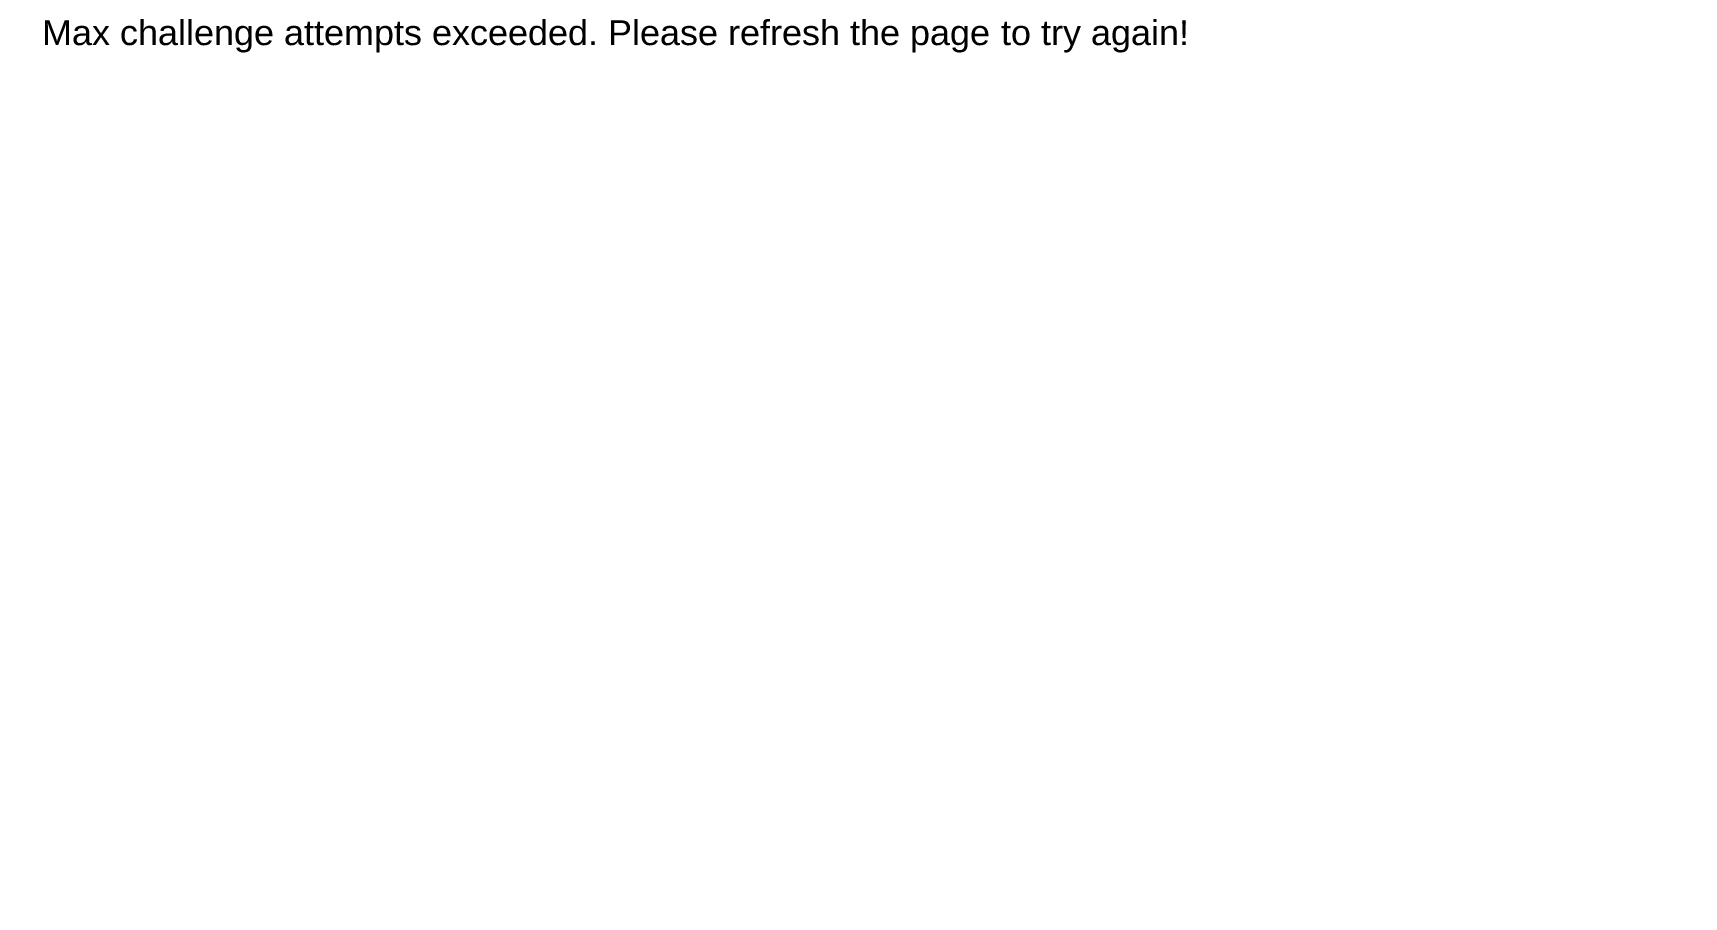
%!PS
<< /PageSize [1717 930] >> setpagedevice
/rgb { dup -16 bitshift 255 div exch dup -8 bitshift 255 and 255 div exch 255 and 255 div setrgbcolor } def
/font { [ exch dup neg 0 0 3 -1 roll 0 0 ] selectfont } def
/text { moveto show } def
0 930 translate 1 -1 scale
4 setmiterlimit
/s1 { /LiberationSans-Regular 36 font 16#000000 rgb } def
16#FFFFFF rgb
0 0 1717 930 rectfill
s1
(Max challenge attempts exceeded. Please refresh the page to try again!) 42 45 text
showpage
